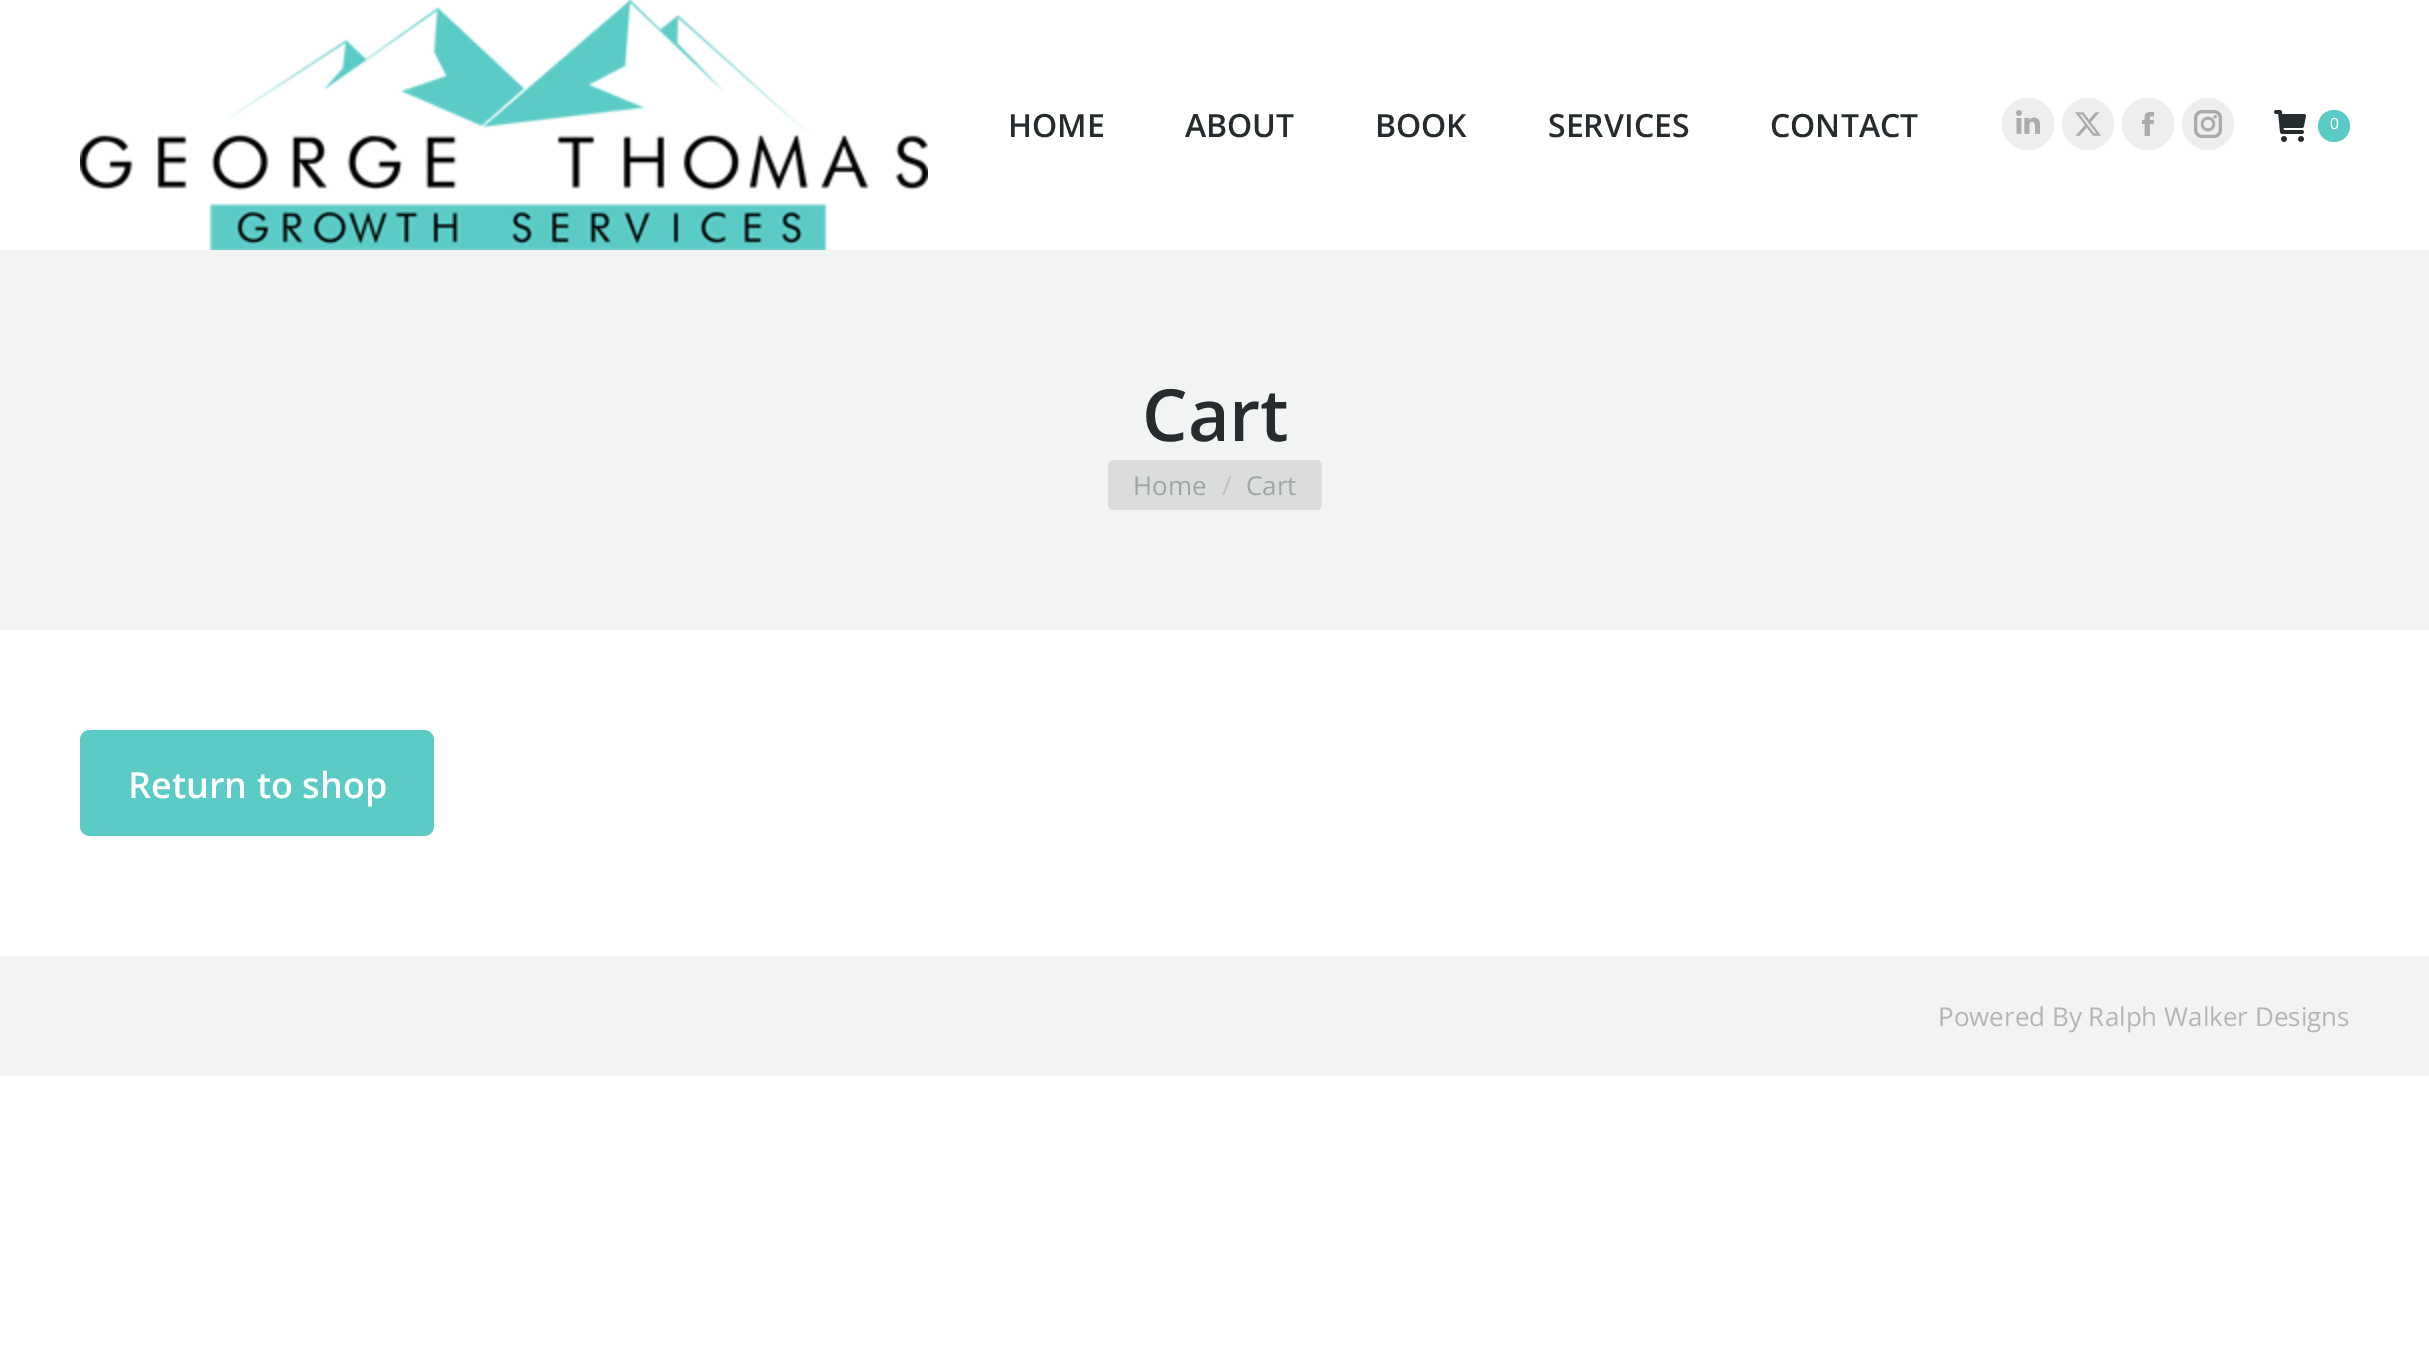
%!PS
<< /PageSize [2429 1365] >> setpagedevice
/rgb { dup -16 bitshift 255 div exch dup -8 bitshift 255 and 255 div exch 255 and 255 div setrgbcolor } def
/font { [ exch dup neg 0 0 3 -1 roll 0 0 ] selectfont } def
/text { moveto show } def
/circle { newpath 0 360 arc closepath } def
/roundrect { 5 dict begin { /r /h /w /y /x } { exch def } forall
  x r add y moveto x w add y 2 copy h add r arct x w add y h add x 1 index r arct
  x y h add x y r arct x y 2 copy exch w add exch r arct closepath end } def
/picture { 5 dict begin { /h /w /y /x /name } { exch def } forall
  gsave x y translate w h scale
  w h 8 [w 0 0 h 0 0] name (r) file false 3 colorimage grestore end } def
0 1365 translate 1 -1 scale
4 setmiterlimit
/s1 { /OpenSans-SemiBold 32 font 16#262B2E rgb } def
/s2 { /LiberationSans-Regular 16 font 16#FFFFFF rgb } def
/s3 { /OpenSans-SemiBold 72 font 16#262B2E rgb } def
/s4 { /OpenSans-Regular 26 font 16#A2A5A6 rgb } def
/s5 { /OpenSans-Regular 26 font 16#BFC1C2 rgb } def
/s6 { /OpenSans-SemiBold 36 font 16#FFFFFF rgb } def
/s7 { /OpenSans-Regular 26 font 16#B3B5B6 rgb } def
16#FFFFFF rgb
0 0 2429 1365 rectfill
(pic1.raw) 80 0 848 250 picture
s1
(HOME) 1008 137 text
(ABOUT) 1185 137 text
(BOOK) 1375 137 text
(SERVICES) 1548 137 text
(CONTACT) 1770 137 text
16#EDEEEE rgb
2028 124 26 circle fill
(pic2.raw) 2016 110 24 24 picture
2088 124 26 circle fill
(pic3.raw) 2075 112 26 24 picture
2148 124 26 circle fill
(pic4.raw) 2142 112 12 24 picture
2208 124 26 circle fill
(pic5.raw) 2194 110 28 28 picture
(pic6.raw) 2274 110 32 32 picture
16#5BCBC6 rgb
2334 126 16 circle fill
s2
(0) 2330 129 text
16#F2F3F3 rgb
0 250 2429 380 rectfill
s3
(Cart) 1142 441 text
16#DBDDDD rgb
1108 460 214 50 6 roundrect fill
s4
(Home) 1133 495 text
s5
(/) 1222 495 text
s4
(Cart) 1246 495 text
16#5BCBC6 rgb
80 730 354 106 10 roundrect fill
s6
(Return to shop) 128 798 text
16#F2F3F3 rgb
0 956 2429 120 rectfill
s7
(Powered By Ralph Walker Designs) 1938 1026 text
showpage
